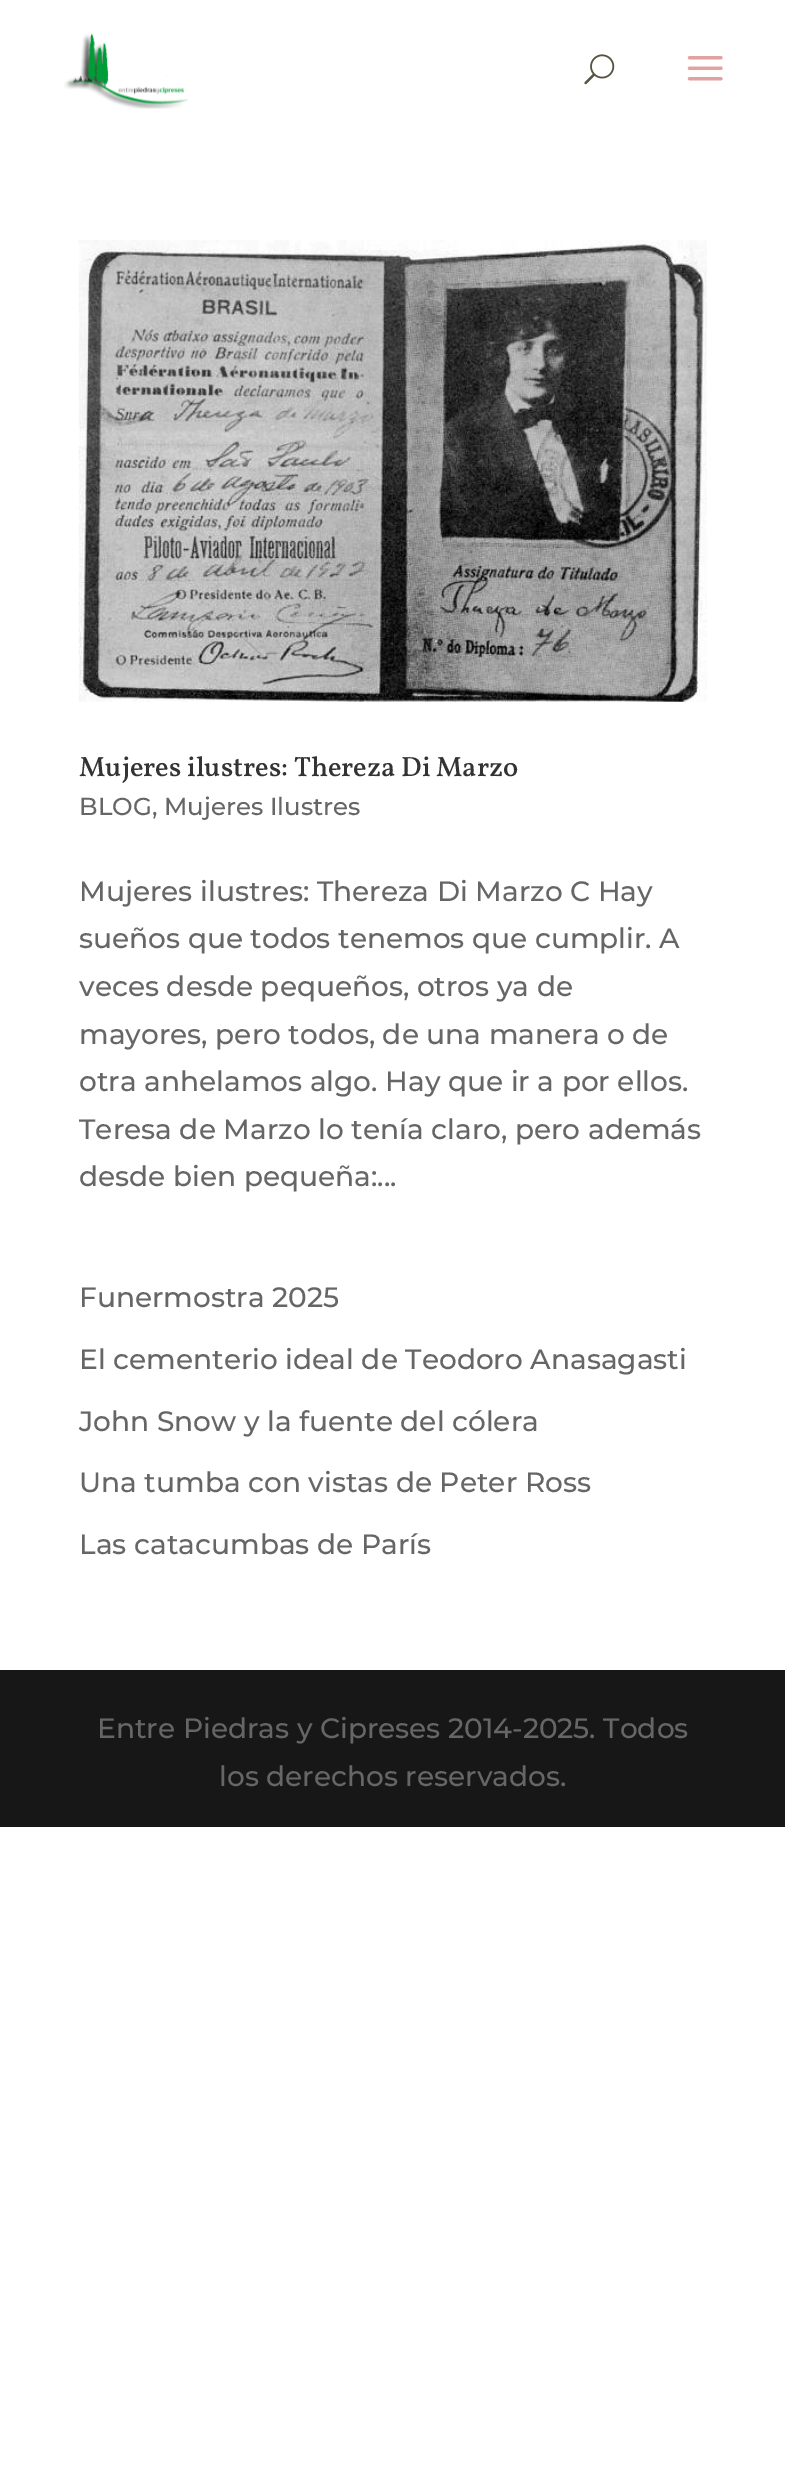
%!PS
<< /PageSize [785 2486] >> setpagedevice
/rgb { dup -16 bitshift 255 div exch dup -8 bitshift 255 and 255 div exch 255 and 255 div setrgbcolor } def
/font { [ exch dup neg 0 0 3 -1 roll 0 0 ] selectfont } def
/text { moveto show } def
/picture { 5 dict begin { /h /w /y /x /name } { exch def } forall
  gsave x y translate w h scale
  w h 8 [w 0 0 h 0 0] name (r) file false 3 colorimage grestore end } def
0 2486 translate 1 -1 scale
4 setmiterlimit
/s1 { /Vollkorn-Medium 28 font 16#333333 rgb } def
/s2 { /Montserrat-Medium 24.5 font 16#666666 rgb } def
/s3 { /Montserrat-Medium 28 font 16#666666 rgb } def
16#FFFFFF rgb
0 0 785 2486 rectfill
(pic1.raw) 64 33 124 76 picture
(pic2.raw) 584 54 31 31 picture
(pic3.raw) 687 56 36 25 picture
(pic4.raw) 78 240 629 462 picture
s1
(Mujeres ilustres: Thereza Di Marzo) 79 776 text
s2
(BLOG, Mujeres Ilustres) 79 815 text
s3
(Mujeres ilustres: Thereza Di Marzo C Hay) 79 901 text
(sueños que todos tenemos que cumplir. A) 79 948 text
(veces desde pequeños, otros ya de) 79 996 text
(mayores, pero todos, de una manera o de) 79 1044 text
(otra anhelamos algo. Hay que ir a por ellos.) 79 1091 text
(Teresa de Marzo lo tenía claro, pero además) 79 1139 text
(desde bien pequeña:...) 79 1186 text
(Funermostra 2025) 79 1307 text
(El cementerio ideal de Teodoro Anasagasti) 79 1369 text
(John Snow y la fuente del cólera) 79 1431 text
(Una tumba con vistas de Peter Ross) 79 1492 text
(Las catacumbas de París) 79 1554 text
16#171717 rgb
0 1670 785 157 rectfill
s3
(Entre Piedras y Cipreses 2014-2025. Todos) 97 1738 text
(los derechos reservados.) 219 1786 text
showpage
